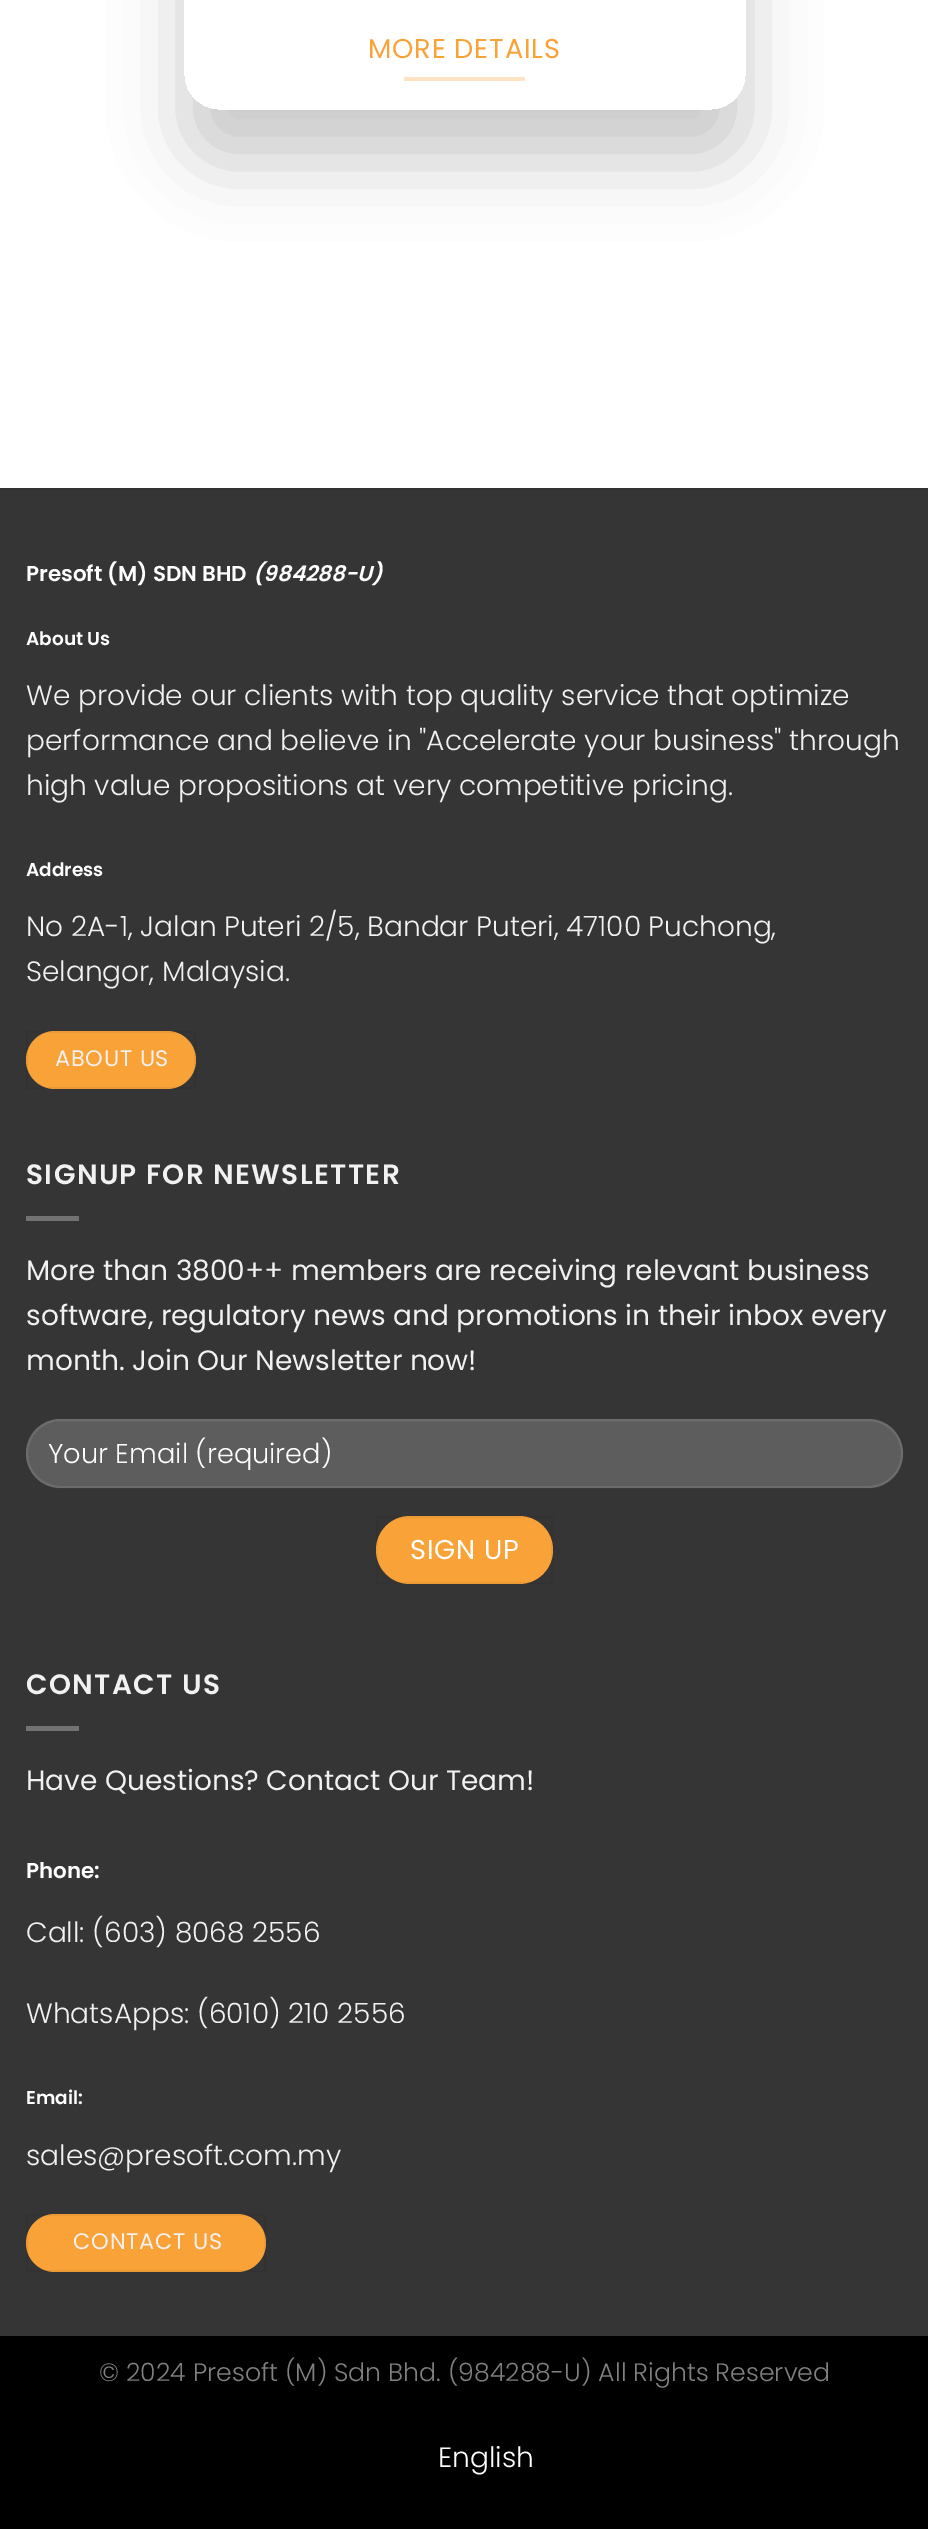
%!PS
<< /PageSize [928 2529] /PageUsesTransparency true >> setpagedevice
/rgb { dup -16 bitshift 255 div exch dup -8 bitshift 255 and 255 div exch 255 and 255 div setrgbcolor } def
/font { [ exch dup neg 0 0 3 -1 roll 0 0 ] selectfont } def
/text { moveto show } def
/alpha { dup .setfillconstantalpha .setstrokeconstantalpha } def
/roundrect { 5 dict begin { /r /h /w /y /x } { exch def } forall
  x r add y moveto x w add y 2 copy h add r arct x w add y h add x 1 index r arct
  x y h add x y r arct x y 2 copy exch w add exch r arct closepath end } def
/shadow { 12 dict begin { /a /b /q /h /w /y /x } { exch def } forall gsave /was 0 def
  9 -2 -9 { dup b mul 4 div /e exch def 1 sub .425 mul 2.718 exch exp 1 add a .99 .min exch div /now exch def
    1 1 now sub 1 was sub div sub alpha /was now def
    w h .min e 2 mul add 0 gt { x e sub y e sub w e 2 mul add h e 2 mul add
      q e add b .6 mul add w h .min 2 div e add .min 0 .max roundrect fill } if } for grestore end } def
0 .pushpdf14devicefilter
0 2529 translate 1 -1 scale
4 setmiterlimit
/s1 { /Poppins-SemiBold 21.5 font 16#FFFFFF rgb } def
/s2 { /Poppins-SemiBoldItalic 21.5 font 16#FFFFFF rgb } def
/s3 { /Poppins-SemiBold 18.5 font 16#FFFFFF rgb } def
/s4 { /Poppins-Light 28 font 16#F1F1F1 rgb } def
/s5 { /Poppins-Regular 28 font 16#F1F1F1 rgb } def
/s6 { /Poppins-Light 27.25 font 16#FFFFFF rgb } def
/s7 { /Poppins-Light 25.2 font 16#808080 rgb } def
/s8 { /Poppins-Light 28 font 16#FFFFFF rgb } def
16#000000 rgb
0 0 928 2529 rectfill
16#FFFFFF rgb
0 0 928 488 rectfill
gsave
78 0 moveto 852 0 lineto 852 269 lineto 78 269 lineto closepath 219 -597 moveto 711 -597 lineto 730.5 -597 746 -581.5 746 -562 curveto 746 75 lineto 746 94.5 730.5 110 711 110 curveto 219 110 lineto 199.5 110 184 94.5 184 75 curveto 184 -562 lineto 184 -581.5 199.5 -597 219 -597 curveto closepath eoclip newpath
16#000000 rgb
184 -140 562 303 35 35 0.2 shadow
grestore
/Poppins-Regular 27.25 font
16#F9A238 rgb
368 58 moveto 0.75 0 (MORE DETAILS) ashow
16#FDE3C3 rgb
404 77 121 4 rectfill
16#353535 rgb
0 490 928 1846 rectfill
16#323232 rgb
0 488 928 2 rectfill
s1
(Presoft \(M\) SDN BHD) 26 581 text
s2
(\(984288-U\)) 253 581 text
s3
(About Us) 26 645 text
s4
(We provide our clients with top quality service that optimize) 26 705 text
(performance and believe in "Accelerate your business" through) 26 750 text
(high value propositions at very competitive pricing.) 26 795 text
s3
(Address) 26 876 text
s4
(No 2A-1, Jalan Puteri 2/5, Bandar Puteri, 47100 Puchong,) 26 936 text
(Selangor, Malaysia.) 26 981 text
16#F9A238 rgb
26 1031 170 58 29 roundrect fill
0.05 alpha
16#000000 rgb
2 setlinewidth
27 1032 168 56 rectstroke
/Poppins-Regular 22.5 font
1 alpha
16#F1F1F1 rgb
55 1066 moveto 0.75 0 (ABOUT US) ashow
/Poppins-SemiBold 28 font
26 1184 moveto 1.4 0 (SIGNUP FOR NEWSLETTER) ashow
16#727272 rgb
26 1216 53 5 rectfill
s5
(More than 3800++ members are receiving relevant business) 26 1280 text
(software, regulatory news and promotions in their inbox every) 26 1325 text
(month. Join Our Newsletter now!) 26 1370 text
16#5D5D5D rgb
26 1419 877 69 34.5 roundrect fill
0.09 alpha
16#FFFFFF rgb
27 1420 875 67 33.5 roundrect stroke
1 alpha
s6
(Your Email \(required\)) 48 1463 text
16#F9A238 rgb
376 1516 177 68 34 roundrect fill
0.05 alpha
16#000000 rgb
377 1517 175 66 rectstroke
/Poppins-Regular 27.25 font
1 alpha
16#FFFFFF rgb
410 1559 moveto 0.75 0 (SIGN UP) ashow
/Poppins-SemiBold 28 font
16#F1F1F1 rgb
26 1694 moveto 1.4 0 (CONTACT US) ashow
16#727272 rgb
26 1726 53 5 rectfill
s5
(Have Questions? Contact Our Team!) 26 1790 text
s1
(Phone:) 26 1878 text
s4
(Call: \(603\) 8068 2556) 26 1942 text
(WhatsApps: \(6010\) 210 2556) 26 2023 text
s3
(Email:) 26 2104 text
s4
(sales@presoft.com.my) 26 2165 text
16#F9A238 rgb
26 2214 240 58 29 roundrect fill
0.05 alpha
16#000000 rgb
27 2215 238 56 rectstroke
/Poppins-Regular 22.5 font
1 alpha
16#F1F1F1 rgb
73 2249 moveto 0.75 0 (CONTACT US) ashow
s7
(© 2024 Presoft \(M\) Sdn Bhd. \(984288-U\) All Rights Reserved) 99 2381 text
s8
(English) 438 2467 text
.poppdf14devicefilter showpage
